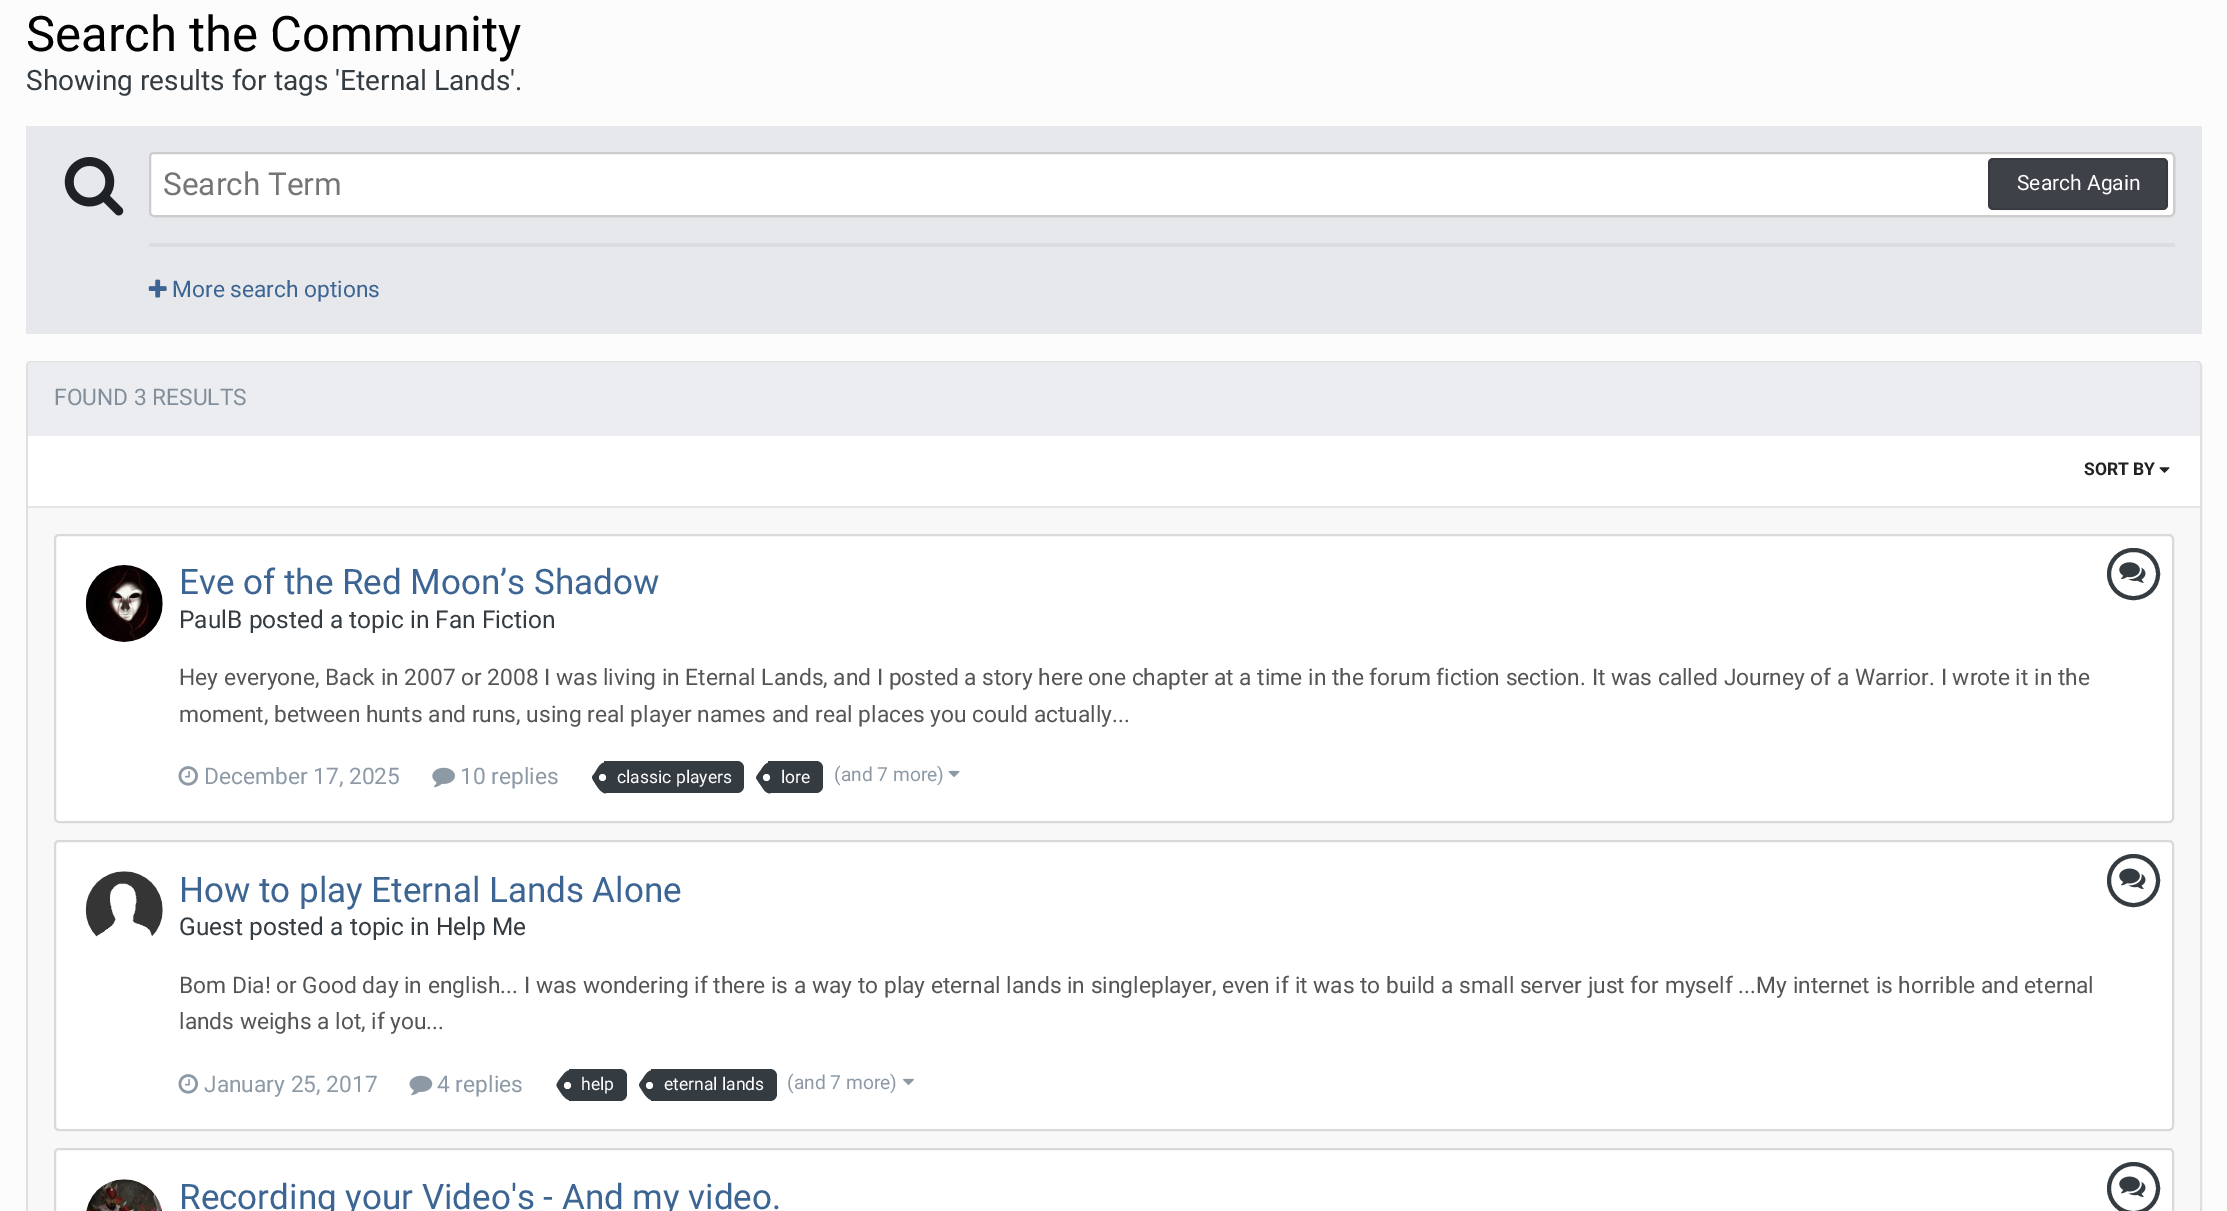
%!PS
<< /PageSize [2227 1211] /PageUsesTransparency true >> setpagedevice
/rgb { dup -16 bitshift 255 div exch dup -8 bitshift 255 and 255 div exch 255 and 255 div setrgbcolor } def
/font { [ exch dup neg 0 0 3 -1 roll 0 0 ] selectfont } def
/text { moveto show } def
/alpha { dup .setfillconstantalpha .setstrokeconstantalpha } def
/circle { newpath 0 360 arc closepath } def
/roundrect { 5 dict begin { /r /h /w /y /x } { exch def } forall
  x r add y moveto x w add y 2 copy h add r arct x w add y h add x 1 index r arct
  x y h add x y r arct x y 2 copy exch w add exch r arct closepath end } def
/picture { 5 dict begin { /h /w /y /x /name } { exch def } forall
  gsave x y translate w h scale
  w h 8 [w 0 0 h 0 0] name (r) file false 3 colorimage grestore end } def
0 .pushpdf14devicefilter
0 1211 translate 1 -1 scale
4 setmiterlimit
/s1 { /Roboto-Regular 49 font 16#000000 rgb } def
/s2 { /Roboto-Regular 28 font 16#353C41 rgb } def
/s3 { /Roboto-Regular 31.5 font 16#757575 rgb } def
/s4 { /Roboto-Regular 21 font 16#FFFFFF rgb } def
/s5 { /Roboto-Regular 22.75 font 16#3D6594 rgb } def
/s6 { /Roboto-Regular 22.75 font 16#828E99 rgb } def
/s7 { /Roboto-Bold 17.5 font 16#222222 rgb } def
/s8 { /Roboto-Regular 35 font 16#3D6594 rgb } def
/s9 { /Roboto-Regular 24.5 font 16#353C41 rgb } def
/s10 { /Roboto-Regular 22.75 font 16#555555 rgb } def
/s11 { /Roboto-Regular 22.75 font 16#8D9AA6 rgb } def
/s12 { /Roboto-Regular 17.5 font 16#FFFFFF rgb } def
/s13 { /Roboto-Regular 19.25 font 16#8D9AA6 rgb } def
16#FCFCFC rgb
0 0 2227 1211 rectfill
s1
(Search the Community) 26 51 text
s2
(Showing results for tags 'Eternal Lands'.) 26 90 text
16#E6E8EB rgb
26 126 2176 208 rectfill
(pic1.raw) 64 157 60 59 picture
16#FFFFFF rgb
149 152 2026 65 5 roundrect fill
0.2 alpha
16#000000 rgb
2 setlinewidth
150 153 2024 63 4 roundrect stroke
1 alpha
s3
(Search Term) 163 195 text
16#3E4148 rgb
1988 158 180 52 5 roundrect fill
0.1 alpha
16#000000 rgb
1989 159 178 50 4 roundrect stroke
1 alpha
s4
(Search Again) 2017 190 text
16#DBDCDF rgb
149 243 2026 4 rectfill
(pic2.raw) 148 279 19 19 picture
s5
(More search options) 172 297 text
16#E0E0E0 rgb
27 362 2174 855 4 roundrect stroke
16#EBEDF0 rgb
32 362 moveto 2196 362 lineto 2198 362 2200 364 2200 366 curveto 2200 436 lineto 28 436 lineto 28 366 lineto 28 364 30 362 32 362 curveto closepath fill
s6
(FOUND 3 RESULTS) 54 405 text
16#FFFFFF rgb
28 436 2172 70 rectfill
16#E6E6E6 rgb
28 506 2172 2 rectfill
s7
(SORT BY) 2084 475 text
(pic3.raw) 2159 467 11 6 picture
16#F8F8F8 rgb
28 508 2172 703 rectfill
16#FFFFFF rgb
55 535 2118 287 4 roundrect gsave fill grestore
16#D9D9D9 rgb
stroke
(pic4.raw) 85 565 78 77 picture
s8
(Eve of the Red Moon’s Shadow) 179 594 text
s9
(PaulB posted a topic in Fan Fiction) 179 628 text
4 setlinewidth
2109 550 49 48 24 roundrect stroke
(pic5.raw) 2119 562 27 21 picture
s10
(Hey everyone, Back in 2007 or 2008 I was living in Eternal Lands, and I posted a story here one chapter at a time in the forum fiction section. It was called Journey of a Warrior. I wrote it in the) 179 685 text
(moment, between hunts and runs, using real player names and real places you could actually...) 179 722 text
(pic6.raw) 178 766 20 20 picture
s11
(December 17, 2025) 204 784 text
(pic7.raw) 432 767 23 21 picture
(10 replies) 460 784 text
16#353C41 rgb
604 761 moveto 737 761 lineto 741 761 744 764 744 768 curveto 744 786 lineto 744 790 741 793 737 793 curveto 604 793 lineto closepath fill
593 780 moveto 592 778 lineto 606 778 lineto 606 778.5 lineto 606 778 lineto 606 793.5 lineto 600 793 596 784.5 593 780 curveto closepath 606 778 moveto 606 778 lineto closepath 594 774 moveto 597.5 769.5 599.5 762 606 762.5 curveto 606 777.5 lineto 606 777 lineto 606 778 lineto 592 778 lineto 592 776.5 593 775 594 774 curveto closepath 606 778 moveto 606 777.5 lineto closepath eofill
s12
(classic players) 617 783 text
602.5 777.5 3.5 circle fill
16#353C41 rgb
768 761 moveto 816 761 lineto 820 761 823 764 823 768 curveto 823 786 lineto 823 790 820 793 816 793 curveto 768 793 lineto closepath fill
756.5 779 moveto 756 778 lineto 770.5 778 lineto 770 778.5 lineto 770.5 778 lineto 770.5 793.5 lineto 768.5 793.5 766 792.5 764 790 curveto closepath 770.5 778 moveto 770.5 778 lineto closepath eofill
760.5 770.5 moveto 763 767 765.5 762 770.5 762.5 curveto 770.5 777.5 lineto 770 777 lineto 770.5 778 lineto 756 778 lineto 756 776 759.5 772 760.5 770.5 curveto closepath fill
s12
(lore) 781 783 text
766.5 777.5 3.5 circle fill
s13
(\(and 7 more\)) 834 781 text
(pic8.raw) 948 770 12 7 picture
16#FFFFFF rgb
55 841 2118 289 4 roundrect gsave fill grestore
16#D9D9D9 rgb
2 setlinewidth
stroke
(pic9.raw) 85 871 78 66 picture
s8
(How to play Eternal Lands Alone) 179 902 text
s9
(Guest posted a topic in Help Me) 179 935 text
4 setlinewidth
2133.5 880.5 24.5 circle stroke
(pic10.raw) 2119 868 27 22 picture
s10
(Bom Dia! or Good day in english... I was wondering if there is a way to play eternal lands in singleplayer, even if it was to build a small server just for myself ...My internet is horrible and eternal) 179 993 text
(lands weighs a lot, if you...) 179 1029 text
(pic6.raw) 178 1074 20 20 picture
s11
(January 25, 2017) 204 1092 text
(pic11.raw) 409 1075 24 21 picture
(4 replies) 437 1092 text
16#353C41 rgb
569 1069 moveto 620 1069 lineto 624 1069 627 1072 627 1076 curveto 627 1094 lineto 627 1098 624 1101 620 1101 curveto 569 1101 lineto closepath fill
556.5 1086 moveto 556.5 1085 lineto 571 1085 lineto 570.5 1085.5 lineto 571 1085.5 lineto 571 1100.5 lineto 564.5 1100.5 559.5 1090.5 556.5 1086 curveto closepath 560.5 1078 moveto 563.5 1074.5 566 1070 571 1070 curveto 571 1085 lineto 570.5 1084.5 lineto 571 1085 lineto 556.5 1085 lineto 556.5 1083.5 559.5 1079.5 560.5 1078 curveto closepath fill
s12
(help) 581 1090 text
567.5 1085.5 3.5 circle fill
16#353C41 rgb
651 1069 moveto 770 1069 lineto 774 1069 777 1072 777 1076 curveto 777 1094 lineto 777 1098 774 1101 770 1101 curveto 651 1101 lineto closepath fill
639.5 1086.5 moveto 639 1085 lineto 653.5 1085 lineto 653 1085.5 lineto 653.5 1085.5 lineto 653.5 1100.5 lineto 647 1100.5 642.5 1091 639.5 1086.5 curveto closepath 642.5 1079 moveto 645 1075.5 647.5 1070 653.5 1070 curveto 653.5 1085 lineto 653 1084.5 lineto 653.5 1085 lineto 639 1085 lineto 639 1083.5 641.5 1080.5 642.5 1079 curveto closepath fill
s12
(eternal lands) 664 1090 text
649.5 1085.5 3.5 circle fill
s13
(\(and 7 more\)) 787 1089 text
(pic12.raw) 903 1078 11 7 picture
16#FFFFFF rgb
55 1149 2118 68 4 roundrect gsave fill grestore
16#D9D9D9 rgb
2 setlinewidth
stroke
(pic13.raw) 86 1179 76 32 picture
s8
(Recording your Video's - And my video.) 179 1209 text
16#353C41 rgb
4 setlinewidth
2133.5 1188.5 24.5 circle stroke
(pic10.raw) 2119 1176 27 22 picture
.poppdf14devicefilter showpage
